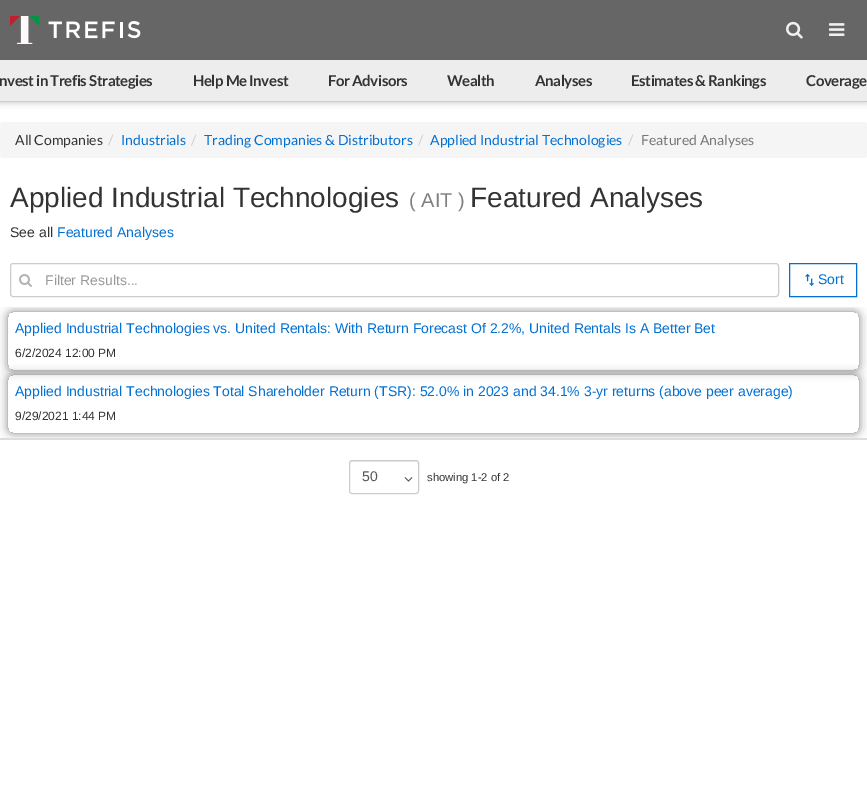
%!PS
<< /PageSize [867 790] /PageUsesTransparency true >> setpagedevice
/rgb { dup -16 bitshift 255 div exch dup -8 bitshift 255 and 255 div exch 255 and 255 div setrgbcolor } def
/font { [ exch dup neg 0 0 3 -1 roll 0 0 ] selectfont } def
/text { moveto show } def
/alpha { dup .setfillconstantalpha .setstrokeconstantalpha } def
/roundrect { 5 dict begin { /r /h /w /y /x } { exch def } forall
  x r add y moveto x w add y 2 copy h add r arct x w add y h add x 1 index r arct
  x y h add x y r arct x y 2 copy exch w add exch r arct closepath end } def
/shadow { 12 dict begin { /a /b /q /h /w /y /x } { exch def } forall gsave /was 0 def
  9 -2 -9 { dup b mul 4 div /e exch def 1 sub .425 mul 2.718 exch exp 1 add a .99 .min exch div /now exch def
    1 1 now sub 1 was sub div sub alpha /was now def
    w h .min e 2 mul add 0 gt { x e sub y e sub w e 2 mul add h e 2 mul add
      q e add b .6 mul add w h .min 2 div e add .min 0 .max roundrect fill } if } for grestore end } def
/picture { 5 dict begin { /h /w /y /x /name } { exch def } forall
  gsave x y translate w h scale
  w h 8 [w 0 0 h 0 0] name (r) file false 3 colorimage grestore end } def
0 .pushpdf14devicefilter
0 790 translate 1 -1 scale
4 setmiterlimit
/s1 { /Lato-Regular 14 font 16#333333 rgb } def
/s2 { /Lato-Regular 14 font 16#CCCCCC rgb } def
/s3 { /Lato-Regular 14 font 16#0370D2 rgb } def
/s4 { /Lato-Regular 14 font 16#777777 rgb } def
/s5 { /LiberationSans-Regular 28 font 16#333333 rgb } def
/s6 { /LiberationSans-Regular 20 font 16#808080 rgb } def
/s7 { /LiberationSans-Regular 14 font 16#333333 rgb } def
/s8 { /LiberationSans-Regular 14 font 16#0370D2 rgb } def
/s9 { /LiberationSans-Regular 14 font 16#999999 rgb } def
/s10 { /LiberationSans-Regular 12 font 16#333333 rgb } def
/s11 { /LiberationSans-Regular 14 font 16#555555 rgb } def
/s12 { /LiberationSans-Regular 11.25 font 16#333333 rgb } def
16#FFFFFF rgb
0 0 867 790 rectfill
16#CCCCCC rgb
0 1 867 102 0 3 1 shadow
16#666666 rgb
0 0 867 60 rectfill
(pic1.raw) 10 16 131 28 picture
(pic2.raw) 786 21 17 18 picture
(pic3.raw) 829 23 16 13 picture
16#EDEDED rgb
0 60 867 41 rectfill
16#CCCCCC rgb
0 101 867 1 rectfill
/Lato-Bold 15 font
16#333333 rgb
-1 86 moveto -0.45 0 (nvest in Trefis Strategies) ashow
193 86 moveto -0.45 0 (Help Me Invest) ashow
328 86 moveto -0.45 0 (For Advisors) ashow
447 86 moveto -0.45 0 (Wealth) ashow
535 86 moveto -0.45 0 (Analyses) ashow
631 86 moveto -0.45 0 (Estimates & Rankings) ashow
806 86 moveto -0.45 0 (Coverage) ashow
16#F5F5F5 rgb
0 122 867 36 3 roundrect fill
s1
(All Companies) 15 145 text
s2
(/) 108 145 text
s3
(Industrials) 121 145 text
s2
(/) 191 145 text
s3
(Trading Companies & Distributors) 204 145 text
s2
(/) 418 145 text
s3
(Applied Industrial Technologies) 430 145 text
s2
(/) 628 145 text
s4
(Featured Analyses) 641 145 text
s5
(Applied Industrial Technologies) 10 207 text
s6
(\( AIT \)) 409 207 text
s5
(Featured Analyses) 470 207 text
s7
(See all) 10 237 text
s8
(Featured Analyses) 57 237 text
16#CCCCCC rgb
10.5 263.5 768 33 2.5 roundrect stroke
(pic4.raw) 19 274 13 13 picture
s9
(Filter Results...) 45 285 text
16#0370D2 rgb
789.5 263.5 67 33 rectstroke
(pic5.raw) 805 273 10 13 picture
(Sort) 818 284 text
gsave
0 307 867 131 rectclip
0 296 moveto 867 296 lineto 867 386 lineto 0 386 lineto closepath 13 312 moveto 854 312 lineto 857 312 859 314 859 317 curveto 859 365 lineto 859 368 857 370 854 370 curveto 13 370 lineto 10 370 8 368 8 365 curveto 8 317 lineto 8 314 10 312 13 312 curveto closepath eoclip newpath
16#7E7E7E rgb
8 312 851 58 5 5 1 shadow
grestore
(Applied Industrial Technologies vs. United Rentals: With Return Forecast Of 2.2%, United Rentals Is A Better Bet) 15 333 text
s10
(6/2/2024 12:00 PM) 15 357 text
16#DDDDDD rgb
0 438 867 2 rectfill
gsave
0 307 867 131 rectclip
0 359 moveto 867 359 lineto 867 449 lineto 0 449 lineto closepath 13 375 moveto 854 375 lineto 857 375 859 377 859 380 curveto 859 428 lineto 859 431 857 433 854 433 curveto 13 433 lineto 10 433 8 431 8 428 curveto 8 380 lineto 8 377 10 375 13 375 curveto closepath eoclip newpath
16#7E7E7E rgb
8 375 851 58 5 5 1 shadow
grestore
s8
(Applied Industrial Technologies Total Shareholder Return \(TSR\): 52.0% in 2023 and 34.1% 3-yr returns \(above peer average\)) 15 396 text
s10
(9/29/2021 1:44 PM) 15 420 text
16#ECECEC rgb
352 462 moveto 417 462 lineto 418 464 lineto 418 458 409 461 405 461 curveto 363 461 lineto 359 461 350 458 350 464 curveto 350 463 351 462 352 462 curveto closepath fill
16#CCCCCC rgb
349.5 460.5 69 33 2.5 roundrect stroke
s11
(50) 362 481 text
(pic6.raw) 404 477 9 5 picture
s12
(showing 1-2 of 2) 427 481 text
.poppdf14devicefilter showpage
